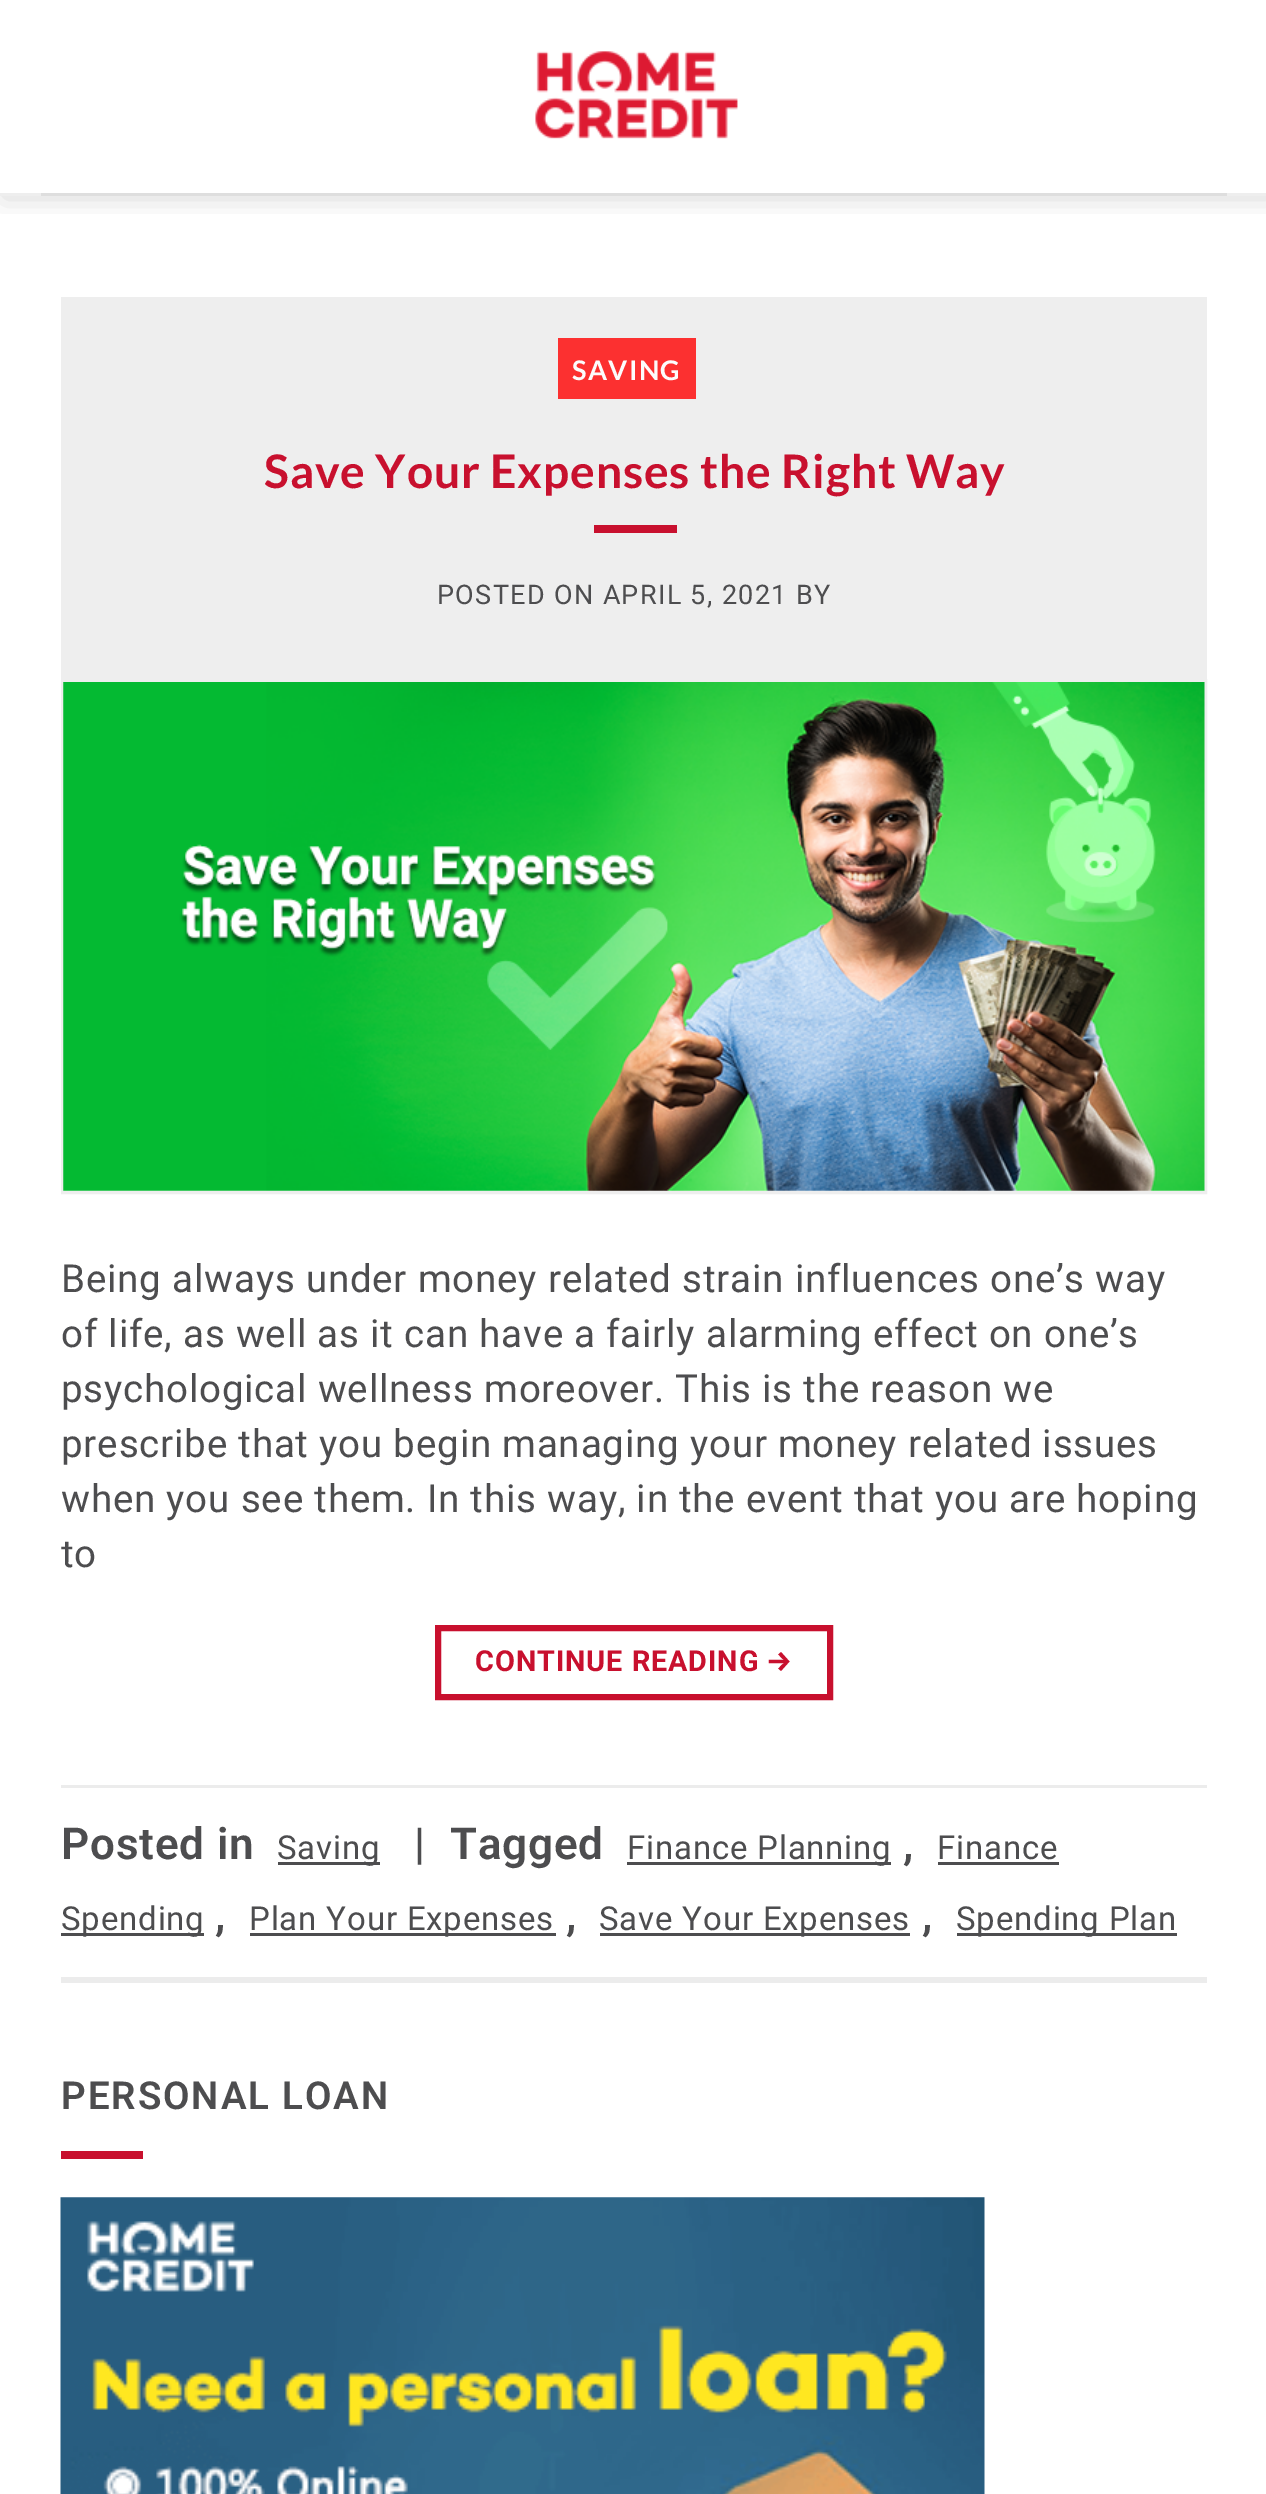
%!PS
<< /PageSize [1266 2494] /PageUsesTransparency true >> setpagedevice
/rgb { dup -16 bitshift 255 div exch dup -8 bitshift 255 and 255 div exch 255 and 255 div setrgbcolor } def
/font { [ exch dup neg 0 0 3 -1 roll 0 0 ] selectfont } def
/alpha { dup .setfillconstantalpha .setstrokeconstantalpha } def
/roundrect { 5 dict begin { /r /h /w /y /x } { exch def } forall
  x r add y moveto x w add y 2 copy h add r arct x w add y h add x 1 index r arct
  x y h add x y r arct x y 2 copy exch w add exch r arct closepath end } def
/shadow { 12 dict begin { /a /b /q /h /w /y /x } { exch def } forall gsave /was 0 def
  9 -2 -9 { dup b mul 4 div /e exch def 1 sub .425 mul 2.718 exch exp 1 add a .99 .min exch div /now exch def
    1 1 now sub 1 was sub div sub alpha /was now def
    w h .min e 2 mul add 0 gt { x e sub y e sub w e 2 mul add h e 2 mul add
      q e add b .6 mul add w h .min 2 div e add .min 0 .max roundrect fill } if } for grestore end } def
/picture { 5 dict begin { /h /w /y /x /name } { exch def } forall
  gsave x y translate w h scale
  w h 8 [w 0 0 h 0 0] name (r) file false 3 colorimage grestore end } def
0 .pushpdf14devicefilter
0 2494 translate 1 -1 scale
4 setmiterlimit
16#FFFFFF rgb
0 0 1266 2494 rectfill
gsave
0 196 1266 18 rectclip
16#000000 rgb
3 3 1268 195 0 14 0.15 shadow
grestore
16#EEEEEE rgb
0 193 1266 3 rectfill
(pic1.raw) 535 51 203 88 picture
16#DEDEDE rgb
41 193 1186 3 rectfill
16#EEEEEE rgb
61 297 1146 382 rectfill
16#FC3030 rgb
558 338 138 61 rectfill
/Lato-Bold 27 font
16#FCFCFC rgb
572 380 moveto 1.35 0 (SAVING) ashow
/Lato-Bold 46.25 font
16#C8102E rgb
264 488 moveto 0.82 0 (Save Your Expenses the Right Way) ashow
594 525 83 8 rectfill
/Roboto-Regular 27 font
16#4D4D4F rgb
437 604 moveto 1.35 0 (POSTED ON APRIL 5, 2021 BY) ashow
16#EEEEEE rgb
3 setlinewidth
62.5 680.5 1143 512 rectstroke
(pic2.raw) 63 682 1142 509 picture
/Roboto-Regular 38.5 font
16#4D4D4F rgb
61 1292 moveto 0.82 0 (Being always under money related strain influences one’s way) ashow
61 1347 moveto 0.82 0 (of life, as well as it can have a fairly alarming effect on one’s) ashow
61 1402 moveto 0.82 0 (psychological wellness moreover. This is the reason we) ashow
61 1457 moveto 0.82 0 (prescribe that you begin managing your money related issues) ashow
61 1512 moveto 0.82 0 (when you see them. In this way, in the event that you are hoping) ashow
61 1567 moveto 0.82 0 (to) ashow
16#C8102E rgb
6 setlinewidth
438 1628 392 69 rectstroke
/Roboto-Bold 28.9 font
475 1671 moveto 0.9 0 (CONTINUE READING) ashow
/FiraSans-Bold 28.9 font
766 1671 moveto 0.9 0 (→) ashow
16#ECECEC rgb
61 1785 1146 3 rectfill
61 1977 1146 6 rectfill
/Roboto-SemiBold 44 font
16#4D4D4F rgb
61 1859 moveto 0.82 0 (Posted in) ashow
278 1862 102 3 rectfill
/Roboto-Regular 33 font
277 1859 moveto 0.82 0 (Saving) ashow
/Roboto-SemiBold 44 font
414 1859 moveto 0.82 0 (|) ashow
450 1859 moveto 0.82 0 (Tagged) ashow
627 1862 264 3 rectfill
/Roboto-Regular 33 font
627 1859 moveto 0.82 0 (Finance Planning) ashow
/Roboto-SemiBold 44 font
903 1859 moveto 0.82 0 (,) ashow
/Roboto-Regular 33 font
937 1859 moveto 0.82 0 (Finance) ashow
938 1862 121 3 rectfill
61 1933 143 3 rectfill
61 1930 moveto 0.82 0 (Spending) ashow
/Roboto-SemiBold 44 font
215 1930 moveto 0.82 0 (,) ashow
250 1933 306 3 rectfill
/Roboto-Regular 33 font
249 1930 moveto 0.82 0 (Plan Your Expenses) ashow
/Roboto-SemiBold 44 font
566 1930 moveto 0.82 0 (,) ashow
600 1933 310 3 rectfill
/Roboto-Regular 33 font
599 1930 moveto 0.82 0 (Save Your Expenses) ashow
/Roboto-SemiBold 44 font
922 1930 moveto 0.82 0 (,) ashow
957 1933 220 3 rectfill
/Roboto-Regular 33 font
956 1930 moveto 0.82 0 (Spending Plan) ashow
/Roboto-SemiBold 38.5 font
61 2109 moveto 1.9 0 (PERSONAL LOAN) ashow
16#C8102E rgb
61 2151 82 8 rectfill
(pic3.raw) 60 2197 925 297 picture
.poppdf14devicefilter showpage
